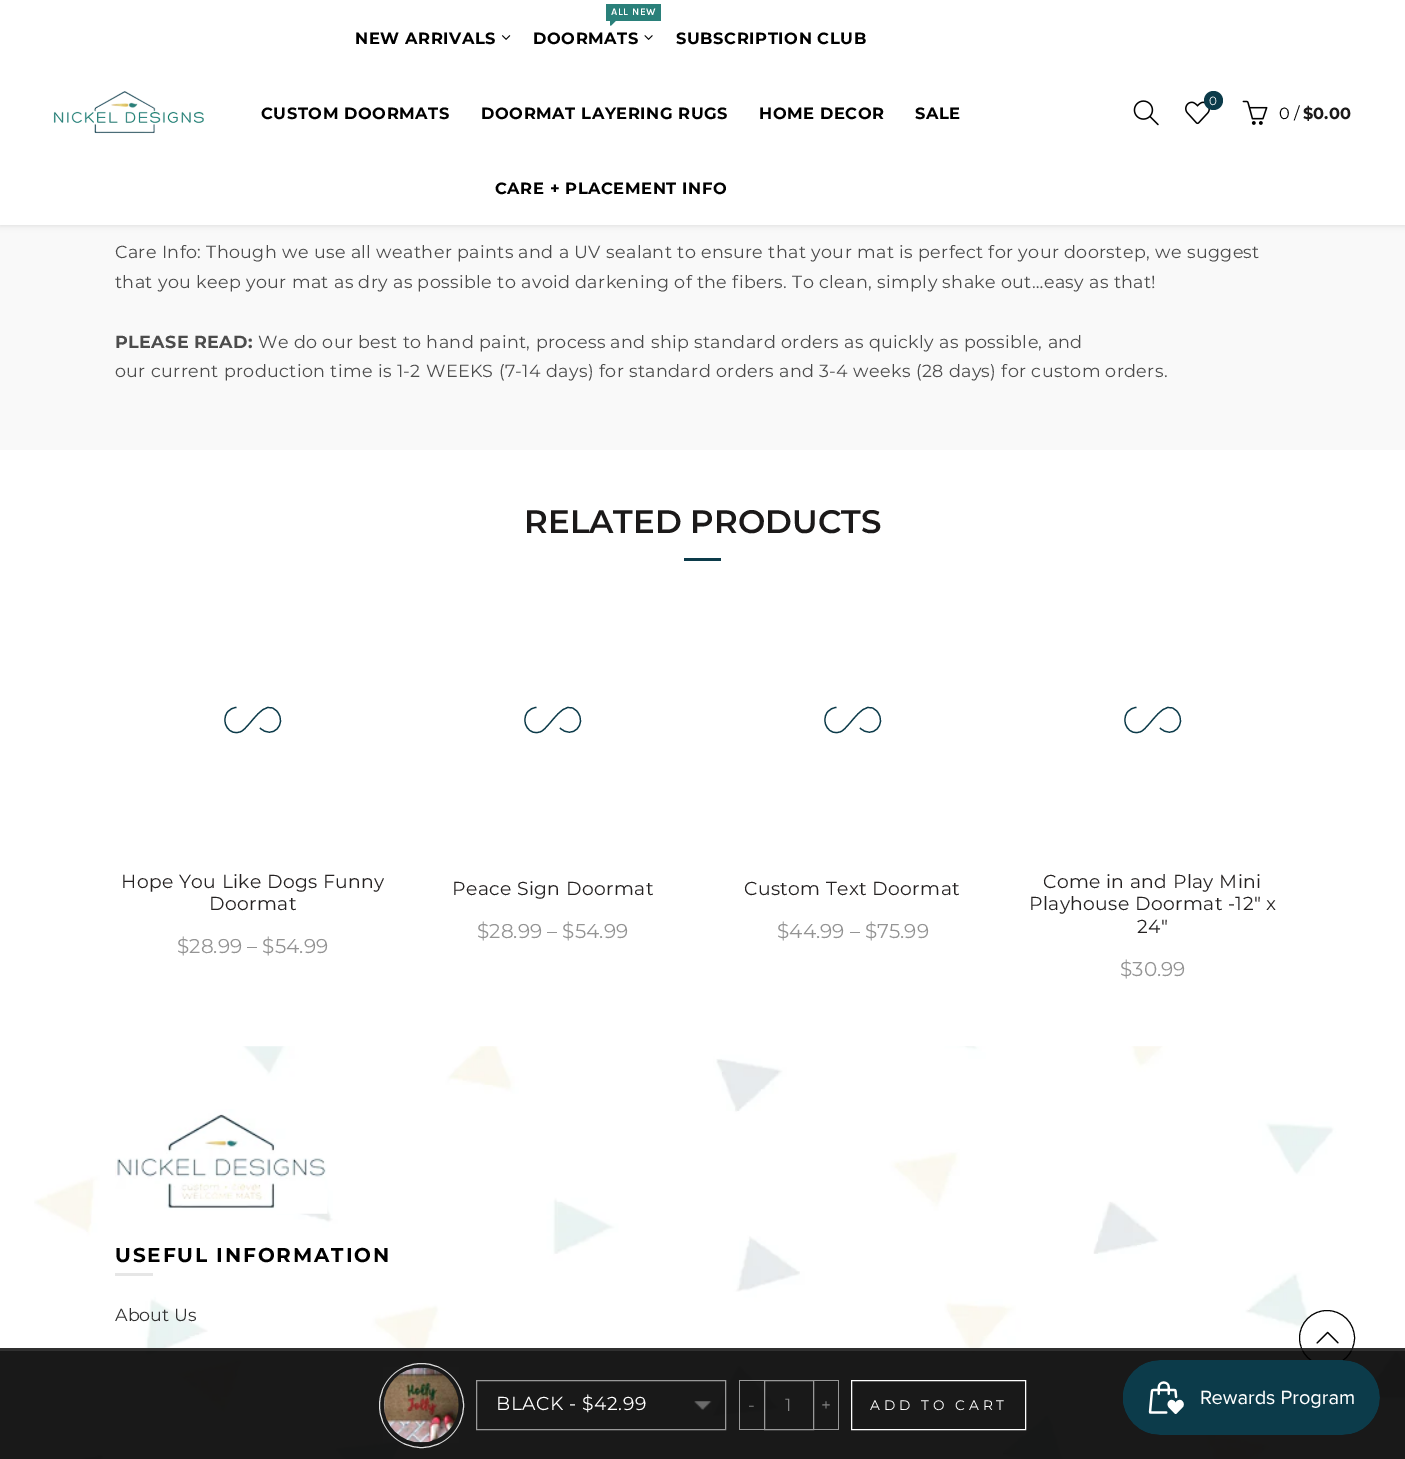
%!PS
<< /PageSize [1405 1459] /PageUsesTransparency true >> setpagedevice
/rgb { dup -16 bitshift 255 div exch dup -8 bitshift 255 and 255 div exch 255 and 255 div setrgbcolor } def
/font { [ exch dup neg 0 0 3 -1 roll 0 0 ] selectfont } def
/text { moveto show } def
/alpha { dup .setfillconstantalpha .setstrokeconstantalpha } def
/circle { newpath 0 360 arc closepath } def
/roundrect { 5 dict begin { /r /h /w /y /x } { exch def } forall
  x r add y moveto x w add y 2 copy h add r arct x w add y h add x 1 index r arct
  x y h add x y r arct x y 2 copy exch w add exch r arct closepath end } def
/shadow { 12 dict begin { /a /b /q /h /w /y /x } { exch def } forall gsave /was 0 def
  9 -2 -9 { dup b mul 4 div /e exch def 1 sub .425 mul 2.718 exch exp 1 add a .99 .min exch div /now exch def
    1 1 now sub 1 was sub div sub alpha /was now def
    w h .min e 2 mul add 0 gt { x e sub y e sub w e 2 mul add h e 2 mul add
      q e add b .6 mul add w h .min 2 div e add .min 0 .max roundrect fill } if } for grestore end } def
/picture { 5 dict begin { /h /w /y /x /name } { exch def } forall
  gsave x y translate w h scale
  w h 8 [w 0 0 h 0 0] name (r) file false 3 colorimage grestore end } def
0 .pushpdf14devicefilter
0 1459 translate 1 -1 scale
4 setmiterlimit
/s1 { /Montserrat-Regular 12 font 16#FFFFFF rgb } def
/s2 { /Montserrat-Regular 16.25 font 16#000000 rgb } def
/s3 { /Montserrat-Bold 16.25 font 16#1B1919 rgb } def
/s4 { /Montserrat-SemiBold 32.5 font 16#1B1919 rgb } def
/s5 { /Montserrat-Regular 20 font 16#949494 rgb } def
/s6 { /Montserrat-Regular 17.5 font 16#323232 rgb } def
/s7 { /Montserrat-Regular 17.5 font 16#848484 rgb } def
16#FFFFFF rgb
0 0 1405 1459 rectfill
16#F9F9F9 rgb
0 225 1405 225 rectfill
16#BEBEBE rgb
0 1 1405 225 0 3 0.5 shadow
16#FFFFFF rgb
0 0 1405 225 rectfill
(pic1.raw) 53 91 151 43 picture
/Montserrat-Bold 16.25 font
16#000000 rgb
355 44 moveto 0.6 0 (NEW ARRIVALS) ashow
(pic2.raw) 501 35 10 5 picture
16#2A807A rgb
606 4 55 17 rectfill
/Karla-Bold 10 font
16#FFFFFF rgb
611 15 moveto 0.6 0 (ALL NEW) ashow
(pic3.raw) 610 21 6 5 picture
/Montserrat-Bold 16.25 font
16#000000 rgb
533 44 moveto 0.6 0 (DOORMATS) ashow
(pic4.raw) 644 35 9 5 picture
676 44 moveto 0.6 0 (SUBSCRIPTION CLUB) ashow
261 119 moveto 0.6 0 (CUSTOM DOORMATS) ashow
481 119 moveto 0.6 0 (DOORMAT LAYERING RUGS) ashow
759 119 moveto 0.6 0 (HOME DECOR) ashow
915 119 moveto 0.6 0 (SALE) ashow
495 194 moveto 0.6 0 (CARE + PLACEMENT INFO) ashow
(pic5.raw) 1133 100 26 26 picture
(pic6.raw) 1185 101 25 24 picture
16#0C3B4A rgb
1213.5 100.5 9.5 circle fill
s1
(0) 1209 105 text
(pic7.raw) 1242 100 26 25 picture
s2
(0 /) 1279 119 text
s3
($0.00) 1303 119 text
/Montserrat-Regular 17.5 font
16#4C4C4C rgb
115 258 moveto 0.38 0 (Care Info: Though we use all weather paints and a UV sealant to ensure that your mat is perfect for your doorstep, we suggest) ashow
115 288 moveto 0.38 0 (that you keep your mat as dry as possible to avoid darkening of the fibers. To clean, simply shake out…easy as that!) ashow
/Montserrat-Bold 17.5 font
115 348 moveto 0.38 0 (PLEASE READ:) ashow
/Montserrat-Regular 17.5 font
258 348 moveto 0.38 0 (We do our best to hand paint, process and ship standard orders as quickly as possible, and) ashow
115 377 moveto 0.38 0 (our current production time is 1-2 WEEKS \(7-14 days\) for standard orders and 3-4 weeks \(28 days\) for custom orders.) ashow
s4
(RELATED PRODUCTS) 524 533 text
16#0C3B4A rgb
684 558 37 3 rectfill
1.2 setlinewidth
236.5 707.5 moveto 233 707.5 229.5 709.5 227.5 712 curveto 220 722 229.5 737 241 731.5 curveto 250.5 727 264.5 695.5 277.5 712 curveto 287 724 272.5 740 260 728 curveto stroke
/Montserrat-Regular 18.75 font
16#252222 rgb
121 888 moveto 0.38 0 (Hope You Like Dogs Funny) ashow
209 910 moveto 0.38 0 (Doormat) ashow
s5
($28.99 – $54.99) 177 953 text
16#0C3B4A rgb
536.5 707.5 moveto 533 707.5 529.5 709.5 527.5 712 curveto 520 722 529.5 737 541 731.5 curveto 550.5 727 564.5 695.5 577.5 712 curveto 587 724 572.5 740 560 728 curveto stroke
/Montserrat-Regular 18.75 font
16#252222 rgb
452 895 moveto 0.38 0 (Peace Sign Doormat) ashow
s5
($28.99 – $54.99) 477 938 text
16#0C3B4A rgb
836.5 707.5 moveto 833 707.5 829.5 709.5 827.5 712 curveto 820 722 829.5 737 841 731.5 curveto 850.5 727 864.5 695.5 877.5 712 curveto 887 724 872.5 740 860 728 curveto stroke
/Montserrat-Regular 18.75 font
16#252222 rgb
744 895 moveto 0.38 0 (Custom Text Doormat) ashow
s5
($44.99 – $75.99) 777 938 text
16#0C3B4A rgb
1136.5 707.5 moveto 1133 707.5 1129.5 709.5 1127.5 712 curveto 1120 722 1129.5 737 1141 731.5 curveto 1150.5 727 1164.5 695.5 1177.5 712 curveto 1187 724 1172.5 740 1160 728 curveto stroke
/Montserrat-Regular 18.75 font
16#252222 rgb
1043 888 moveto 0.38 0 (Come in and Play Mini) ashow
1029 910 moveto 0.38 0 (Playhouse Doormat -12" x) ashow
1137 933 moveto 0.38 0 (24") ashow
s5
($30.99) 1120 976 text
(pic8.raw) 34 1046 1371 413 picture
(pic9.raw) 115 1109 213 105 picture
/Montserrat-Bold 20 font
16#000000 rgb
115 1262 moveto 1.9 0 (USEFUL INFORMATION) ashow
16#E6E6E6 rgb
115 1273 38 3 rectfill
s6
(About Us) 115 1321 text
16#FFFFFF rgb
1327 1338 27.5 circle gsave fill grestore
16#000000 rgb
1 setlinewidth
stroke
(pic10.raw) 1316 1331 23 13 picture
0.9 alpha
0 1348 1405 111 rectfill
0.1 alpha
16#FFFFFF rgb
0 1348 1405 3 rectfill
1 alpha
16#DDDDDD rgb
421.5 1405.5 42 circle stroke
(pic11.raw) 383 1367 76 76 picture
(pic12.raw) 694 1401 18 9 picture
16#999999 rgb
476.5 1380.5 249 49 rectstroke
/Montserrat-Regular 18.75 font
16#FFFFFF rgb
496 1410 moveto 0.5 0 (BLACK - $42.99) ashow
16#999999 rgb
739 1380 25 1 rectfill
739 1429 25 1 rectfill
739 1380 1 50 rectfill
s7
(-) 748 1411 text
16#999999 rgb
764.5 1380.5 49 49 rectstroke
s7
(1) 785 1411 text
16#999999 rgb
814 1380 25 1 rectfill
838 1380 1 50 rectfill
814 1429 25 1 rectfill
s7
(+) 821 1411 text
16#FFFFFF rgb
851.5 1380.5 174 49 rectstroke
/Montserrat-Regular 13.75 font
870 1410 moveto 3.75 0 (ADD TO CART) ashow
(pic13.raw) 1123 1360 257 75 picture
.poppdf14devicefilter showpage
